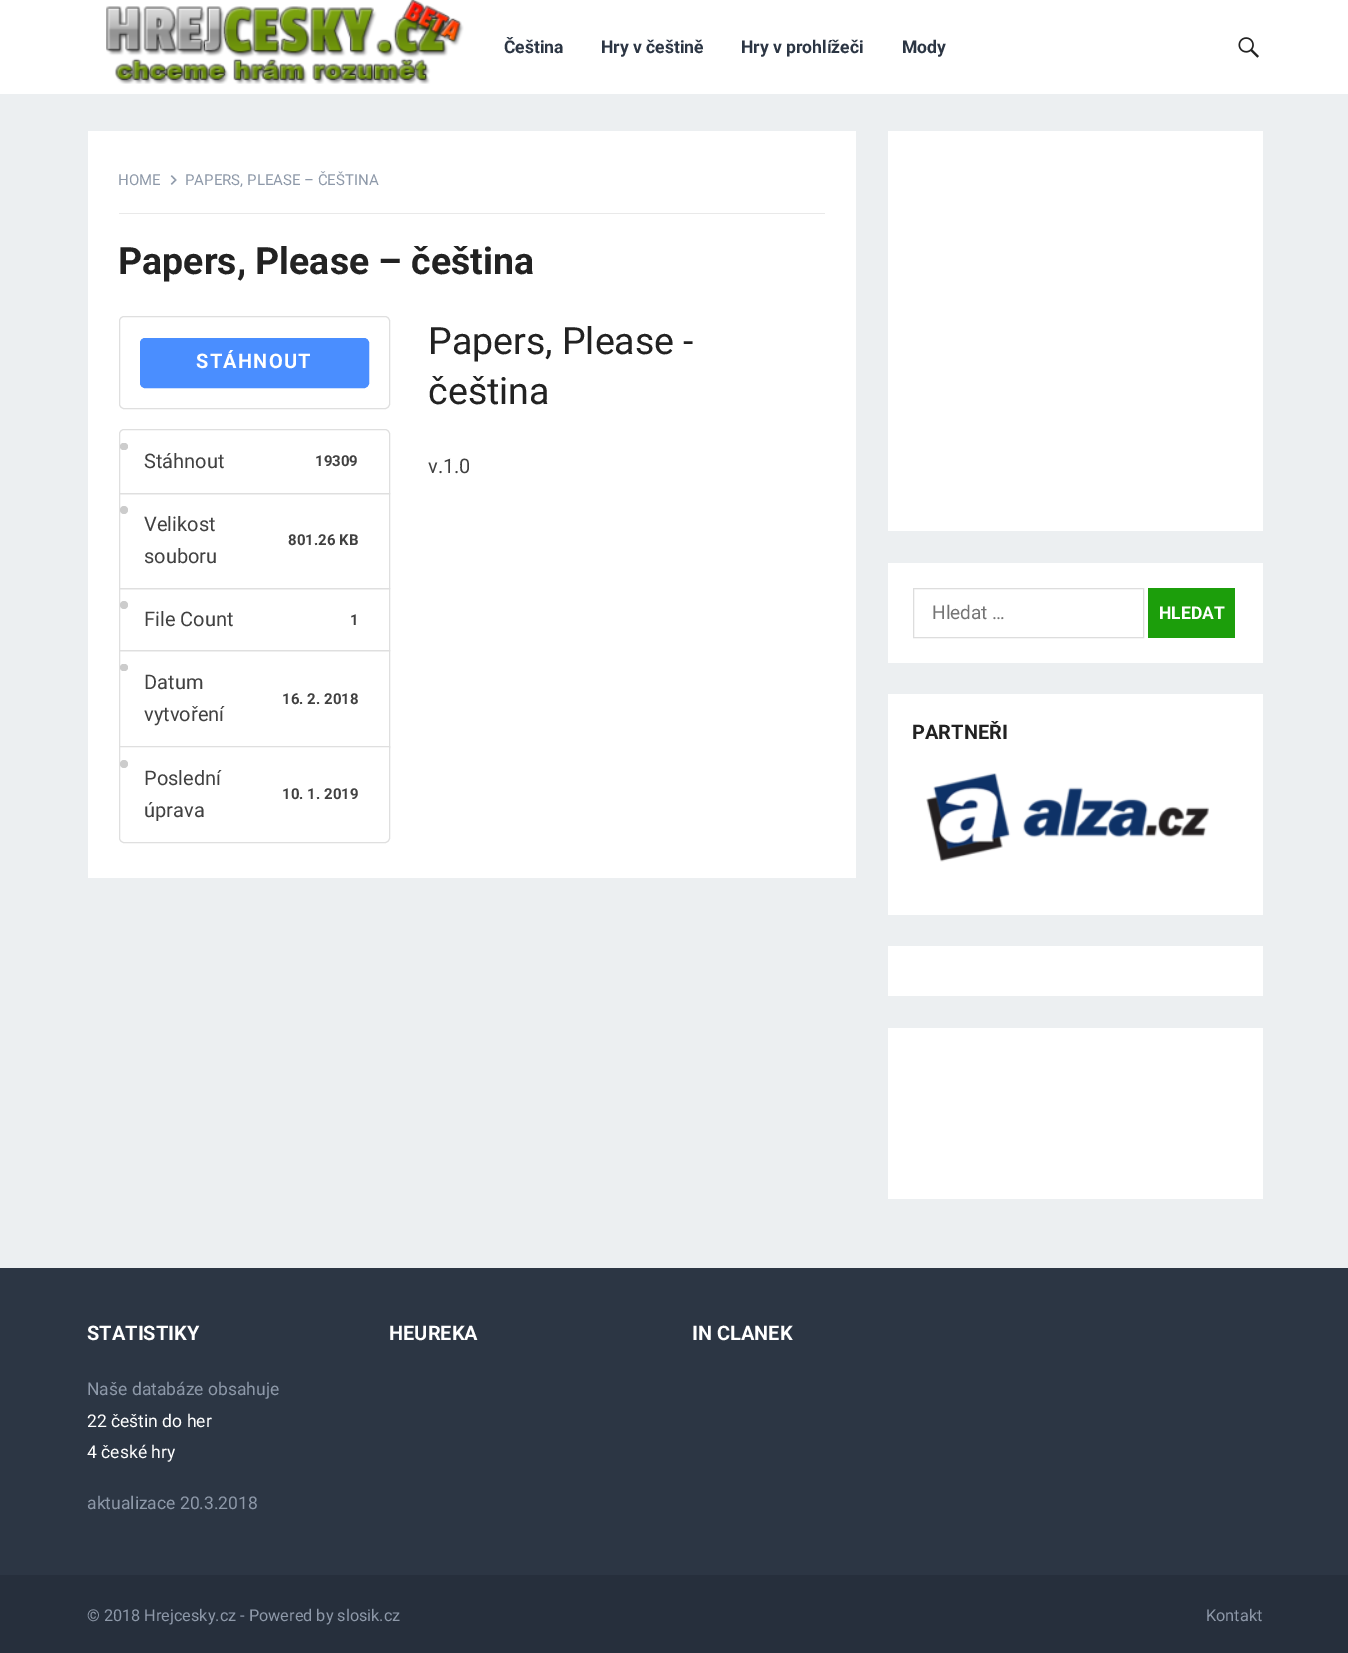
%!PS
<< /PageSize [1348 1653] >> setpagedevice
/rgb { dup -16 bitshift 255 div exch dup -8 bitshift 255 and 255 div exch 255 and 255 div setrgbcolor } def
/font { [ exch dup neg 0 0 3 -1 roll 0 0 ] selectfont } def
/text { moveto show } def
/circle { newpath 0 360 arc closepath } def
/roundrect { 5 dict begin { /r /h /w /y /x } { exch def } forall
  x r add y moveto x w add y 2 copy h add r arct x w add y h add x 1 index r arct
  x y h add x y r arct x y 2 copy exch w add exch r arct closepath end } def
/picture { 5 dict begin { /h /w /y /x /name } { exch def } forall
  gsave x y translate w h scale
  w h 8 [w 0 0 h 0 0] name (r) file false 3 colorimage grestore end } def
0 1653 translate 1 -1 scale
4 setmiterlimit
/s1 { /Roboto-Bold 17.5 font 16#2C3644 rgb } def
/s2 { /Roboto-Regular 15 font 16#8E99A9 rgb } def
/s3 { /Roboto-Bold 37.5 font 16#222222 rgb } def
/s4 { /Roboto-Regular 20 font 16#414141 rgb } def
/s5 { /Roboto-Bold 15 font 16#414141 rgb } def
/s6 { /Roboto-Regular 37.5 font 16#222222 rgb } def
/s7 { /Roboto-Regular 19 font 16#757575 rgb } def
/s8 { /Roboto-Bold 17.5 font 16#FFFFFF rgb } def
/s9 { /Roboto-Bold 20 font 16#222222 rgb } def
/s10 { /Roboto-Bold 20 font 16#FFFFFF rgb } def
/s11 { /Roboto-Regular 17.5 font 16#8E99A9 rgb } def
/s12 { /Roboto-Regular 17.5 font 16#FFFFFF rgb } def
/s13 { /Roboto-Regular 16.25 font 16#8E99A9 rgb } def
16#ECEFF1 rgb
0 0 1348 1653 rectfill
16#FFFFFF rgb
0 0 1348 94 rectfill
(pic1.raw) 106 0 358 84 picture
s1
(Čeština) 504 53 text
(Hry v češtině) 601 53 text
(Hry v prohlížeči) 741 53 text
(Mody) 902 53 text
(pic2.raw) 1238 37 21 21 picture
16#FFFFFF rgb
88 131 768 747 rectfill
16#E9E9E9 rgb
119 213 706 1 rectfill
s2
(HOME) 118 185 text
(pic3.raw) 170 175 7 10 picture
(PAPERS, PLEASE – ČEŠTINA) 185 185 text
s3
(Papers, Please – čeština) 118 274 text
16#DFDFDF rgb
119.5 316.5 270 92 4.5 roundrect stroke
16#4A8EFF rgb
140.5 338.5 228 49 4.5 roundrect gsave fill grestore
stroke
/Roboto-Bold 20 font
16#FFFFFF rgb
196 368 moveto 1.25 0 (STÁHNOUT) ashow
16#DFDFDF rgb
124 429.5 moveto 385 429.5 lineto 387.5 429.5 389.5 431.5 389.5 434 curveto 389.5 493.5 lineto 119.5 493.5 lineto 119.5 434 lineto 119.5 431.5 121.5 429.5 124 429.5 curveto closepath stroke
16#CCCCCC rgb
120 443 8 7 3.5 roundrect fill
s4
(Stáhnout) 144 468 text
s5
(19309) 315 466 text
16#DFDFDF rgb
119.5 493.5 270 95 rectstroke
16#CCCCCC rgb
124 510 4 circle fill
s4
(Velikost) 144 531 text
s5
(801.26 KB) 288 545 text
s4
(souboru) 144 563 text
16#DFDFDF rgb
119.5 588.5 270 62 rectstroke
16#CCCCCC rgb
124 605 4 circle fill
s4
(File Count) 144 626 text
s5
(1) 350 625 text
16#DFDFDF rgb
119.5 650.5 270 97 rectstroke
16#CCCCCC rgb
120 664 8 7 3.5 roundrect fill
s4
(Datum) 144 689 text
s5
(16. 2. 2018) 282 704 text
s4
(vytvoření) 144 721 text
16#FFFFFF rgb
119.5 746.5 moveto 389.5 746.5 lineto 389.5 838 lineto 389.5 840.5 387.5 842.5 385 842.5 curveto 124 842.5 lineto 121.5 842.5 119.5 840.5 119.5 838 curveto closepath gsave fill grestore
16#DFDFDF rgb
stroke
16#CCCCCC rgb
124 764 4 circle fill
s4
(Poslední) 144 785 text
s5
(10. 1. 2019) 282 799 text
s4
(úprava) 144 817 text
s6
(Papers, Please -) 428 354 text
(čeština) 428 404 text
s4
(v.1.0) 428 473 text
16#FFFFFF rgb
888 131 375 400 rectfill
888 563 375 100 rectfill
16#DDDDDD rgb
913.5 588.5 230 49 rectstroke
s7
(Hledat …) 932 619 text
16#1C9E0B rgb
1148 588 87 50 rectfill
s8
(HLEDAT) 1159 619 text
888 694 375 221 rectfill
s9
(PARTNEŘI) 912 739 text
(pic4.raw) 926 773 284 89 picture
16#FFFFFF rgb
888 946 375 50 rectfill
888 1028 375 171 rectfill
16#2C3644 rgb
0 1268 1348 307 rectfill
s10
(STATISTIKY) 87 1340 text
s11
(Naše databáze obsahuje) 87 1395 text
s12
(22 češtin do her) 87 1427 text
(4 české hry) 87 1458 text
s11
(aktualizace 20.3.2018) 87 1509 text
s10
(HEUREKA) 389 1340 text
(IN CLANEK) 692 1340 text
16#262F3C rgb
0 1575 1348 78 rectfill
s13
(© 2018 Hrejcesky.cz - Powered by slosik.cz) 87 1621 text
(Kontakt) 1206 1621 text
showpage
